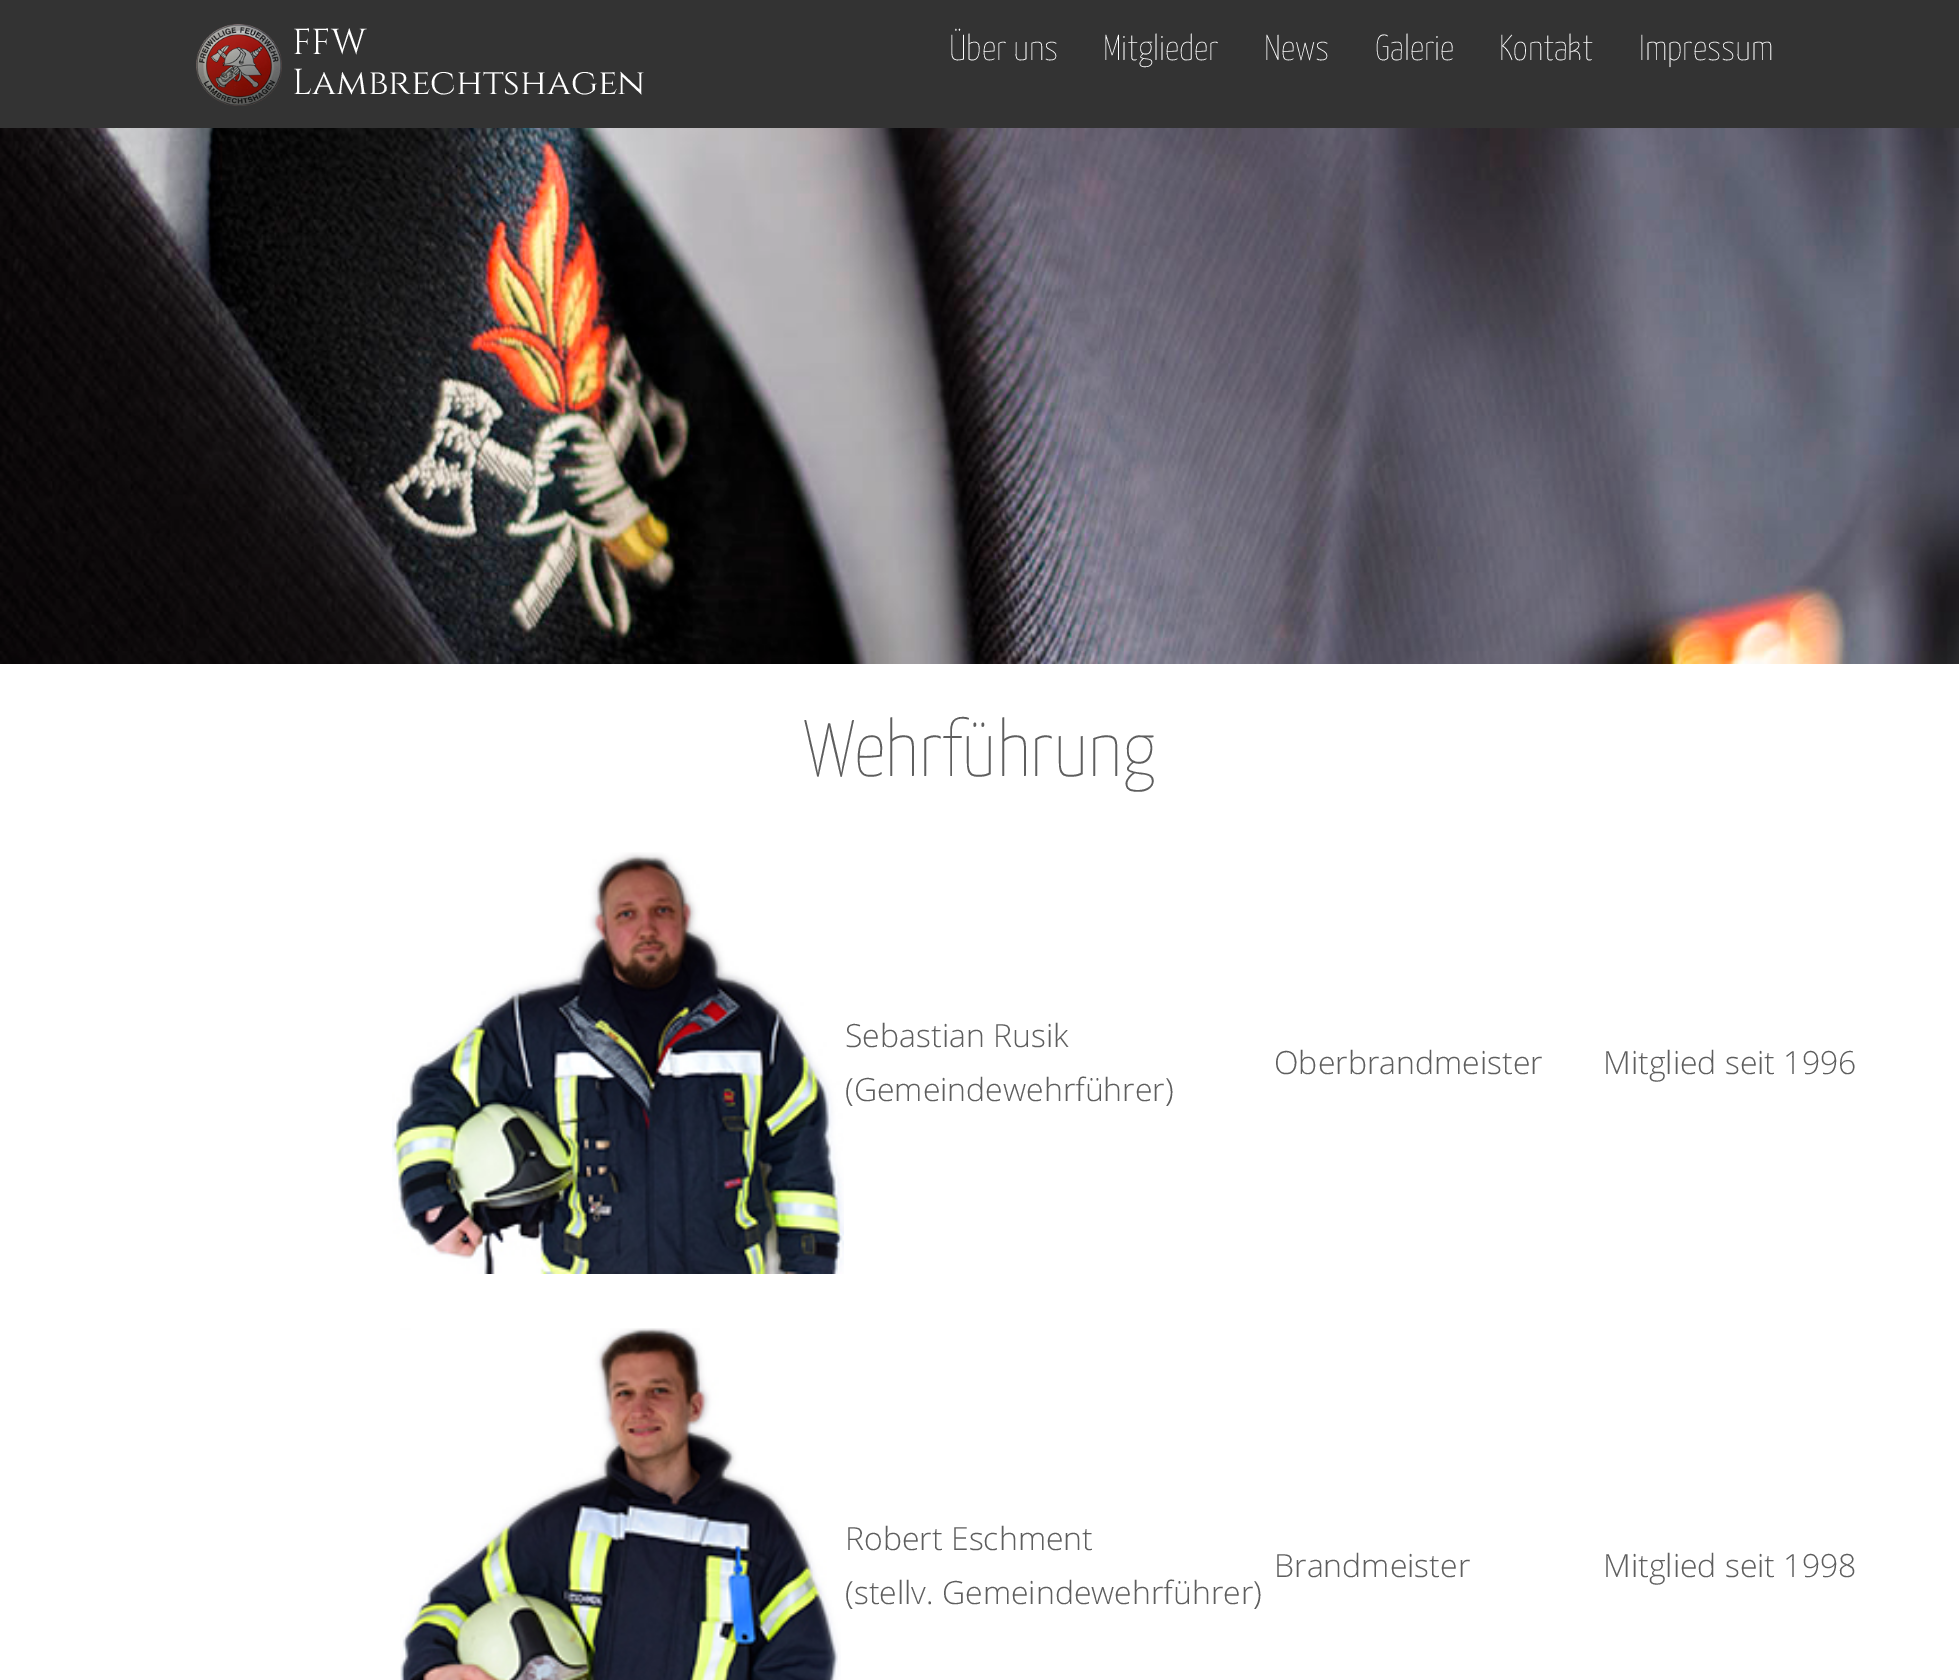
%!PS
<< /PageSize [1959 1680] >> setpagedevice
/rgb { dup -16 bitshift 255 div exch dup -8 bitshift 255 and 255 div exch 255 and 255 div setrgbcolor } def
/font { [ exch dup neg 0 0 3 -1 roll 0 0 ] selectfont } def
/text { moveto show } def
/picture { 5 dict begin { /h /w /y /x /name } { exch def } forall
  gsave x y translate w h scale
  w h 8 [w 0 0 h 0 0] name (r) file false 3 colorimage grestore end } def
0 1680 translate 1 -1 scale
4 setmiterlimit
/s1 { /Cinzel-Regular 36 font 16#FFFFFF rgb } def
/s2 { /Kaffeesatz-Thin 36 font 16#FFFFFF rgb } def
/s3 { /Kaffeesatz-Thin 80 font 16#5E5E5E rgb } def
/s4 { /OpenSans-Light 32 font 16#5E5E5E rgb } def
16#FFFFFF rgb
0 0 1959 1680 rectfill
16#333333 rgb
0 0 1959 128 rectfill
(pic1.raw) 196 24 86 82 picture
s1
(FFW) 292 54 text
(Lambrechtshagen) 292 94 text
s2
(Über uns) 949 60 text
(Mitglieder) 1103 60 text
(News) 1264 60 text
(Galerie) 1375 60 text
(Kontakt) 1499 60 text
(Impressum) 1639 60 text
(pic2.raw) 0 128 1959 536 picture
s3
(Wehrführung) 804 776 text
(pic3.raw) 392 852 452 422 picture
s4
(Sebastian Rusik) 845 1047 text
(\(Gemeindewehrführer\)) 845 1101 text
(Oberbrandmeister) 1274 1074 text
(Mitglied seit 1996) 1603 1074 text
(pic4.raw) 400 1328 441 352 picture
(Robert Eschment) 845 1550 text
(\(stellv. Gemeindewehrführer\)) 845 1604 text
(Brandmeister) 1274 1577 text
(Mitglied seit 1998) 1603 1577 text
showpage
